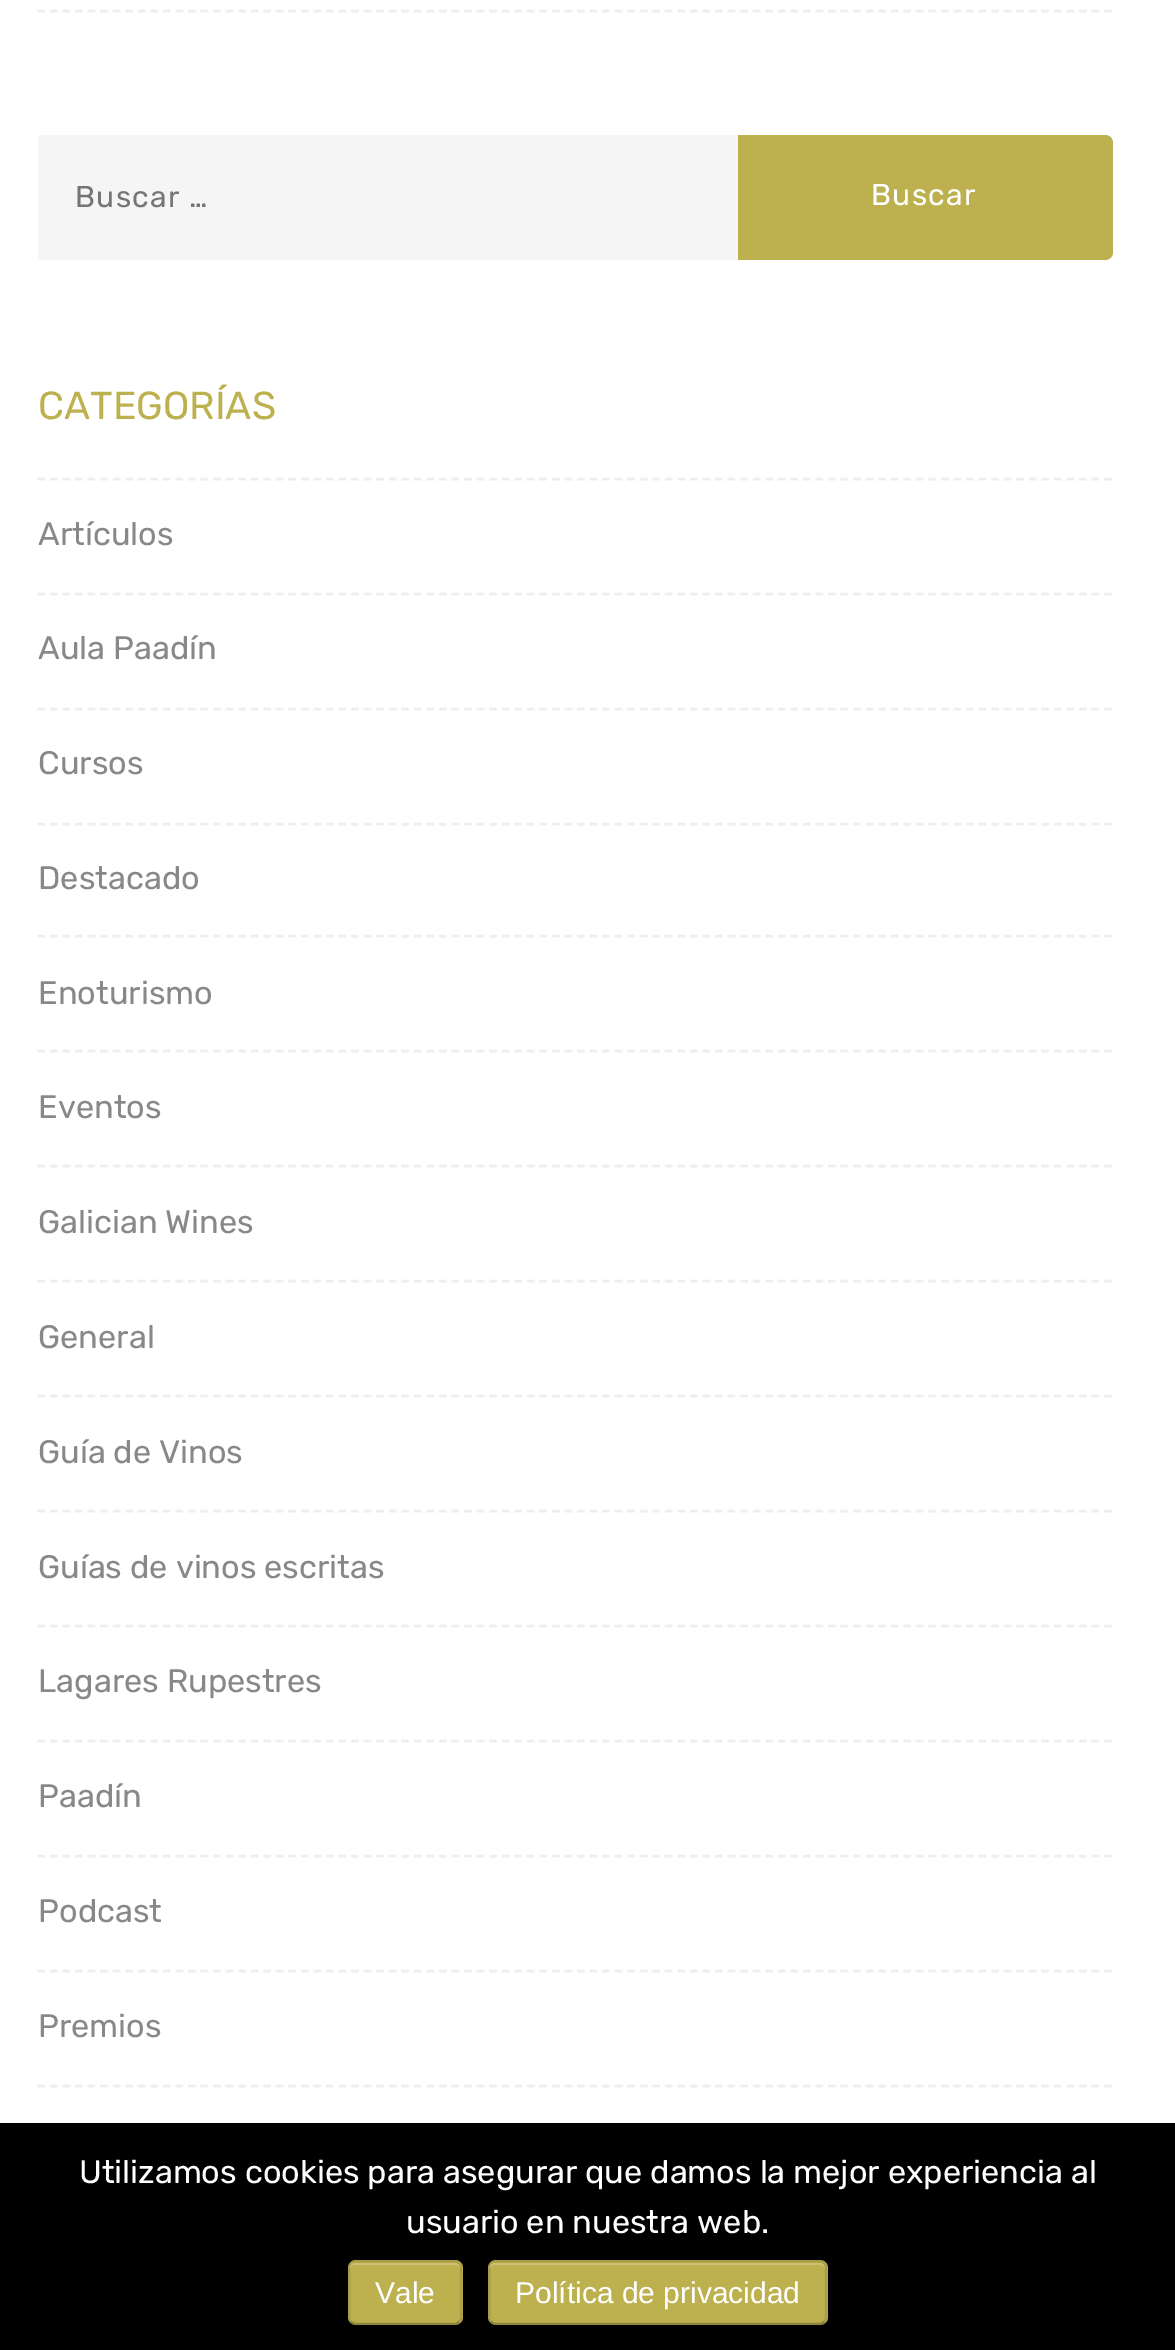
%!PS
<< /PageSize [1175 2350] /PageUsesTransparency true >> setpagedevice
/rgb { dup -16 bitshift 255 div exch dup -8 bitshift 255 and 255 div exch 255 and 255 div setrgbcolor } def
/font { [ exch dup neg 0 0 3 -1 roll 0 0 ] selectfont } def
/text { moveto show } def
/alpha { dup .setfillconstantalpha .setstrokeconstantalpha } def
/roundrect { 5 dict begin { /r /h /w /y /x } { exch def } forall
  x r add y moveto x w add y 2 copy h add r arct x w add y h add x 1 index r arct
  x y h add x y r arct x y 2 copy exch w add exch r arct closepath end } def
0 .pushpdf14devicefilter
0 2350 translate 1 -1 scale
4 setmiterlimit
/s1 { /Rubik-Regular 39 font 16#BDB14F rgb } def
/s2 { /Rubik-Regular 32.5 font 16#888888 rgb } def
/s3 { /Rubik-Regular 32.5 font 16#FFFFFF rgb } def
/s4 { /LiberationSans-Regular 30 font 16#FFFFFF rgb } def
16#FFFFFF rgb
0 0 1175 2350 rectfill
16#EEEEEE rgb
2.5 setlinewidth
[7.5 5.05] 0 setdash
37.5 11 moveto 1112.5 11 lineto stroke
16#F5F5F5 rgb
38 135 700 125 rectfill
/Rubik-Regular 30 font
16#757575 rgb
75 207 moveto 1.25 0 (Buscar …) ashow
16#BDB14F rgb
738 135 moveto 1105 135 lineto 1109.5 135 1113 138.5 1113 143 curveto 1113 252 lineto 1113 256.5 1109.5 260 1105 260 curveto 738 260 lineto closepath fill
16#FFFFFF rgb
871 205 moveto 1.25 0 (Buscar) ashow
s1
(CATEGORÍAS) 38 419 text
16#EEEEEE rgb
37.5 479 moveto 1112.5 479 lineto stroke
37.5 594 moveto 1112.5 594 lineto stroke
s2
(Artículos) 38 545 text
16#EEEEEE rgb
37.5 709 moveto 1112.5 709 lineto stroke
s2
(Aula Paadín) 38 659 text
16#EEEEEE rgb
37.5 824 moveto 1112.5 824 lineto stroke
s2
(Cursos) 38 774 text
16#EEEEEE rgb
37.5 936 moveto 1112.5 936 lineto stroke
s2
(Destacado) 38 889 text
16#EEEEEE rgb
37.5 1051 moveto 1112.5 1051 lineto stroke
s2
(Enoturismo) 38 1004 text
16#EEEEEE rgb
37.5 1166 moveto 1112.5 1166 lineto stroke
s2
(Eventos) 38 1118 text
16#EEEEEE rgb
37.5 1281 moveto 1112.5 1281 lineto stroke
s2
(Galician Wines) 38 1233 text
16#EEEEEE rgb
37.5 1396 moveto 1112.5 1396 lineto stroke
s2
(General) 38 1348 text
16#EEEEEE rgb
37.5 1511 moveto 1112.5 1511 lineto stroke
s2
(Guía de Vinos) 38 1463 text
16#EEEEEE rgb
37.5 1626 moveto 1112.5 1626 lineto stroke
s2
(Guías de vinos escritas) 38 1578 text
16#EEEEEE rgb
37.5 1741 moveto 1112.5 1741 lineto stroke
s2
(Lagares Rupestres) 38 1692 text
16#EEEEEE rgb
37.5 1856 moveto 1112.5 1856 lineto stroke
s2
(Paadín) 38 1807 text
16#EEEEEE rgb
37.5 1971 moveto 1112.5 1971 lineto stroke
s2
(Podcast) 38 1922 text
16#EEEEEE rgb
37.5 2086 moveto 1112.5 2086 lineto stroke
s2
(Premios) 38 2037 text
16#000000 rgb
0 2123 1175 227 rectfill
s3
(Utilizamos cookies para asegurar que damos la mejor experiencia al) 79 2183 text
(usuario en nuestra web.) 406 2233 text
16#BDB14F rgb
348 2260 115 65 8 roundrect fill
16#CAC172 rgb
355 2265 moveto 455 2265 lineto 458 2265 460 2267 460 2270 curveto 460 2268 lineto 460 2265 458 2263 455 2263 curveto 355 2263 lineto 352 2263 350 2265 350 2268 curveto 350 2270 lineto 350 2267 352 2265 355 2265 curveto closepath fill
0.25 alpha
16#000000 rgb
[] 0 setdash
459.5 2322 moveto 458 2323 456.5 2324 455 2324 curveto 355 2324 lineto 353.5 2324 352 2323 350.5 2322 curveto stroke
0.1 alpha
350.5 2322 moveto 349.5 2320.5 349 2319 349 2317.5 curveto 349 2267.5 lineto 349 2266 349.5 2264.5 350.5 2263 curveto 352 2262 353.5 2261 355 2261 curveto 455 2261 lineto 456.5 2261 458 2262 459.5 2263 curveto 460.5 2264.5 461 2266 461 2267.5 curveto 461 2317.5 lineto 461 2319 460.5 2320.5 459.5 2322 curveto stroke
1 alpha
s4
(Vale) 375 2303 text
16#BDB14F rgb
488 2260 340 65 8 roundrect fill
16#CAC172 rgb
495 2265 moveto 820 2265 lineto 823 2265 825 2267 825 2270 curveto 825 2268 lineto 825 2265 823 2263 820 2263 curveto 495 2263 lineto 492 2263 490 2265 490 2268 curveto 490 2270 lineto 490 2267 492 2265 495 2265 curveto closepath fill
0.25 alpha
16#000000 rgb
824.5 2322 moveto 823 2323 821.5 2324 820 2324 curveto 495 2324 lineto 493.5 2324 492 2323 490.5 2322 curveto stroke
0.1 alpha
490.5 2322 moveto 489.5 2320.5 489 2319 489 2317.5 curveto 489 2267.5 lineto 489 2266 489.5 2264.5 490.5 2263 curveto 492 2262 493.5 2261 495 2261 curveto 820 2261 lineto 821.5 2261 823 2262 824.5 2263 curveto 825.5 2264.5 826 2266 826 2267.5 curveto 826 2317.5 lineto 826 2319 825.5 2320.5 824.5 2322 curveto stroke
1 alpha
s4
(Política de privacidad) 515 2303 text
.poppdf14devicefilter showpage
